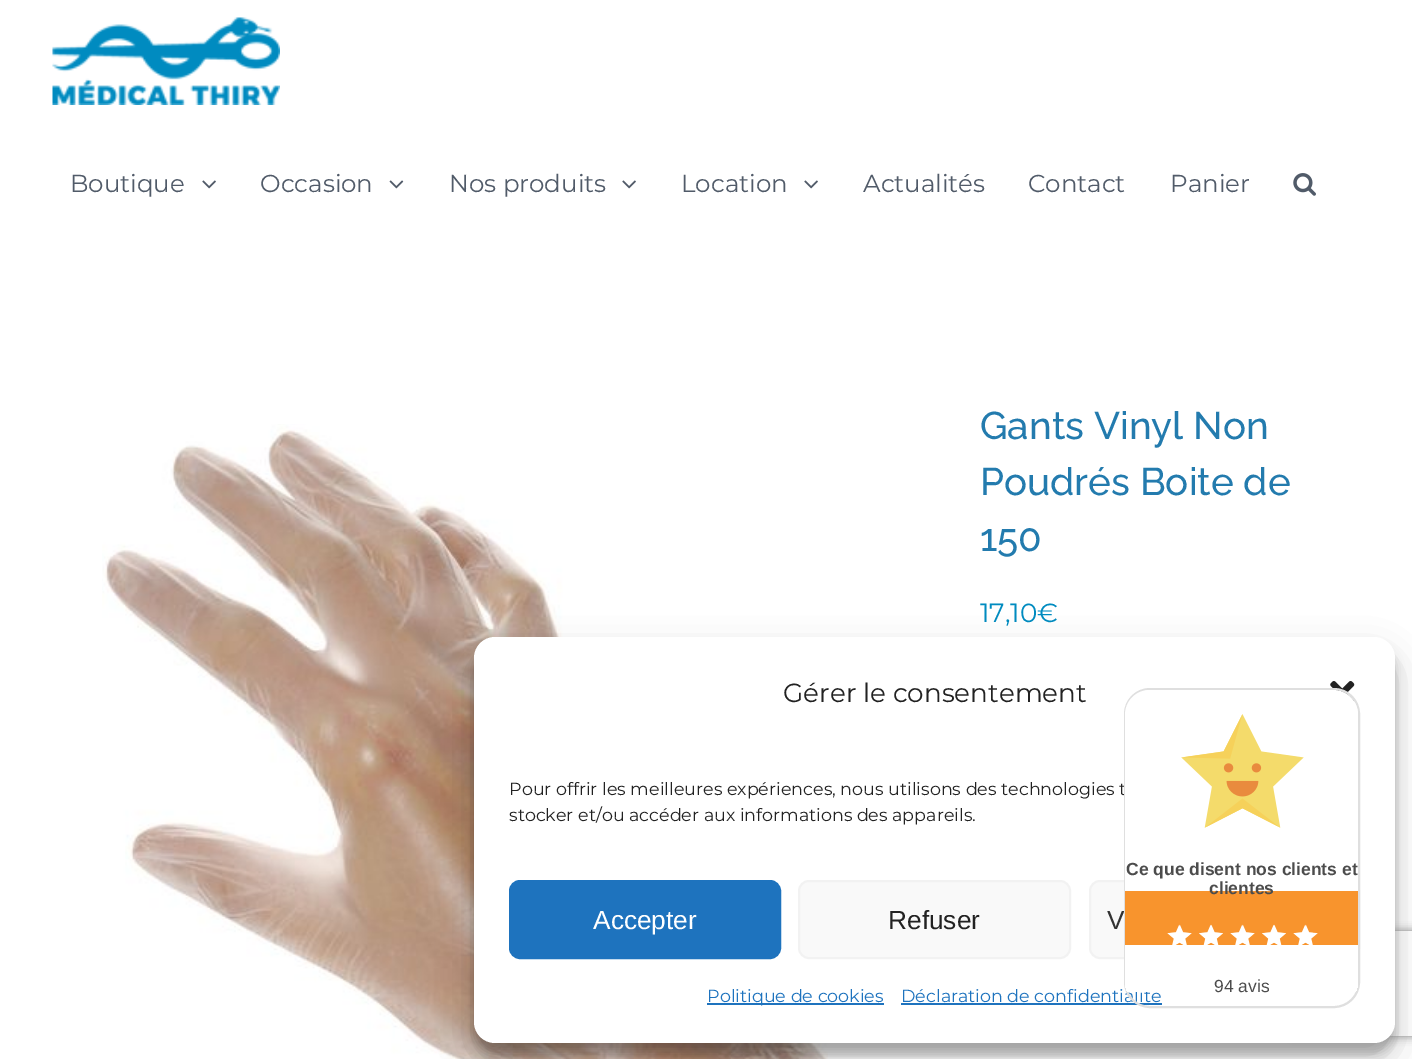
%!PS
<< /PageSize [1412 1059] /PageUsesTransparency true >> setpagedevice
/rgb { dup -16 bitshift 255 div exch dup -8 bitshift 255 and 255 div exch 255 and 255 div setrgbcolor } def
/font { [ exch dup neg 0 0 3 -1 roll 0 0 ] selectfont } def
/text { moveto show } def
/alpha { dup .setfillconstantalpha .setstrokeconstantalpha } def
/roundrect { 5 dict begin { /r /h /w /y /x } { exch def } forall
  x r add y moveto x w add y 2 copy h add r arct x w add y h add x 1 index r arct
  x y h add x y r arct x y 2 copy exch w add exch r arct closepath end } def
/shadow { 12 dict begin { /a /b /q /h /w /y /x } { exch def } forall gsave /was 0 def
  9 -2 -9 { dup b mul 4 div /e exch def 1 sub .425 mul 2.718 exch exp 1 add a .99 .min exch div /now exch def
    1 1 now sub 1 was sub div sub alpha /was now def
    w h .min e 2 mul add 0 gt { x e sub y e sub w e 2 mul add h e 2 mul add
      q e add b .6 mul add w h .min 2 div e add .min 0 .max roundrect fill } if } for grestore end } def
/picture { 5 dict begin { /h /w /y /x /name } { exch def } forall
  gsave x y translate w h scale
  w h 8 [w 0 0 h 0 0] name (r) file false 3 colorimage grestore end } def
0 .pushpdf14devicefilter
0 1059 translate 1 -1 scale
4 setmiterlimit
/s1 { /Montserrat-Regular 24.5 font 16#515B69 rgb } def
/s2 { /Raleway-Thin 38.5 font 16#237BAE rgb } def
/s3 { /Montserrat-Regular 26.25 font 16#008BC0 rgb } def
/s4 { /Montserrat-Regular 26.25 font 16#222222 rgb } def
/s5 { /Montserrat-Regular 17.5 font 16#222222 rgb } def
/s6 { /LiberationSans-Regular 26.25 font 16#FFFFFF rgb } def
/s7 { /LiberationSans-Regular 26.25 font 16#222222 rgb } def
/s8 { /LiberationSans-Regular 26.25 font 16#333333 rgb } def
/s9 { /Montserrat-Regular 17.5 font 16#1E73BE rgb } def
/s10 { /LiberationSans-Bold 17.5 font 16#4C4C4C rgb } def
/s11 { /LiberationSans-Regular 17.5 font 16#4C4C4C rgb } def
16#FFFFFF rgb
0 0 1412 1059 rectfill
(pic1.raw) 52 17 228 88 picture
s1
(Boutique) 70 192 text
(pic2.raw) 202 180 14 9 picture
(Occasion) 260 192 text
(pic3.raw) 389 180 15 9 picture
(Nos produits) 449 192 text
(pic2.raw) 622 180 14 9 picture
(Location) 681 192 text
(pic2.raw) 804 180 14 9 picture
(Actualités) 863 192 text
(Contact) 1028 192 text
(Panier) 1170 192 text
(pic4.raw) 1293 173 23 23 picture
(pic5.raw) 102 424 726 635 picture
s2
(Gants Vinyl Non) 980 439 text
(Poudrés Boite de) 980 495 text
(150) 980 551 text
s3
(17,10€) 980 622 text
16#000000 rgb
474 648 921 406 21 5 0.23 shadow
474 655 921 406 21 17.5 0.19 shadow
gsave
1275 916 moveto 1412 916 lineto 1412 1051 lineto 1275 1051 lineto closepath 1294 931 moveto 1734 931 lineto 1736 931 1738 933 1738 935 curveto 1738 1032 lineto 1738 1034 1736 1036 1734 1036 curveto 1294 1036 lineto 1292 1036 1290 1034 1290 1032 curveto 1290 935 lineto 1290 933 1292 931 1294 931 curveto closepath eoclip newpath
16#808080 rgb
1290 931 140 105 4 4.5 1 shadow
grestore
16#FFFFFF rgb
474 637 921 406 21 roundrect fill
s4
(Gérer le consentement) 783 702 text
(pic6.raw) 1330 681 25 22 picture
s5
(Pour offrir les meilleures expériences, nous utilisons des technologies t) 509 795 text
(stocker et/ou accéder aux informations des appareils.) 509 821 text
16#1E73BE rgb
510 881 270 77 10 roundrect gsave fill grestore
2 setlinewidth
stroke
s6
(Accepter) 593 929 text
16#F9F9F9 rgb
799 881 271 77 10 roundrect gsave fill grestore
16#F2F2F2 rgb
stroke
s7
(Refuser) 888 929 text
16#F9F9F9 rgb
1090 881 269 77 10 roundrect gsave fill grestore
16#F2F2F2 rgb
stroke
s8
(V) 1107 929 text
16#1E73BE rgb
707 1003 177 2 rectfill
s9
(Politique de cookies) 707 1002 text
(Déclaration de confidentialité) 901 1002 text
901 1003 261 2 rectfill
16#DFDFDF rgb
1125 689 234 318 25 roundrect stroke
16#FFFFFF rgb
1150 690 moveto 1333 690 lineto 1347 690 1358 701 1358 715 curveto 1358 891 lineto 1125 891 lineto 1125 715 lineto 1125 701 1136 690 1150 690 curveto closepath fill
16#F8942D rgb
1125 891 233 54 rectfill
gsave
1125 690 233 316 25 roundrect clip newpath
16#FFFFFF rgb
1125 945 233 47 rectfill
grestore
(pic7.raw) 1181 714 123 114 picture
s10
(Ce que disent nos clients et) 1126 875 text
(clientes) 1209 894 text
(pic9.raw) 1168 924 24 21 picture
(pic8.raw) 1167 924 23 21 picture
(pic10.raw) 1199 924 24 21 picture
(pic11.raw) 1199 924 24 21 picture
(pic9.raw) 1231 924 24 21 picture
(pic8.raw) 1230 924 23 21 picture
(pic10.raw) 1262 924 24 21 picture
(pic11.raw) 1262 924 24 21 picture
(pic9.raw) 1294 924 24 21 picture
(pic12.raw) 1293 924 20 21 picture
s11
(94 avis) 1214 992 text
.poppdf14devicefilter showpage
